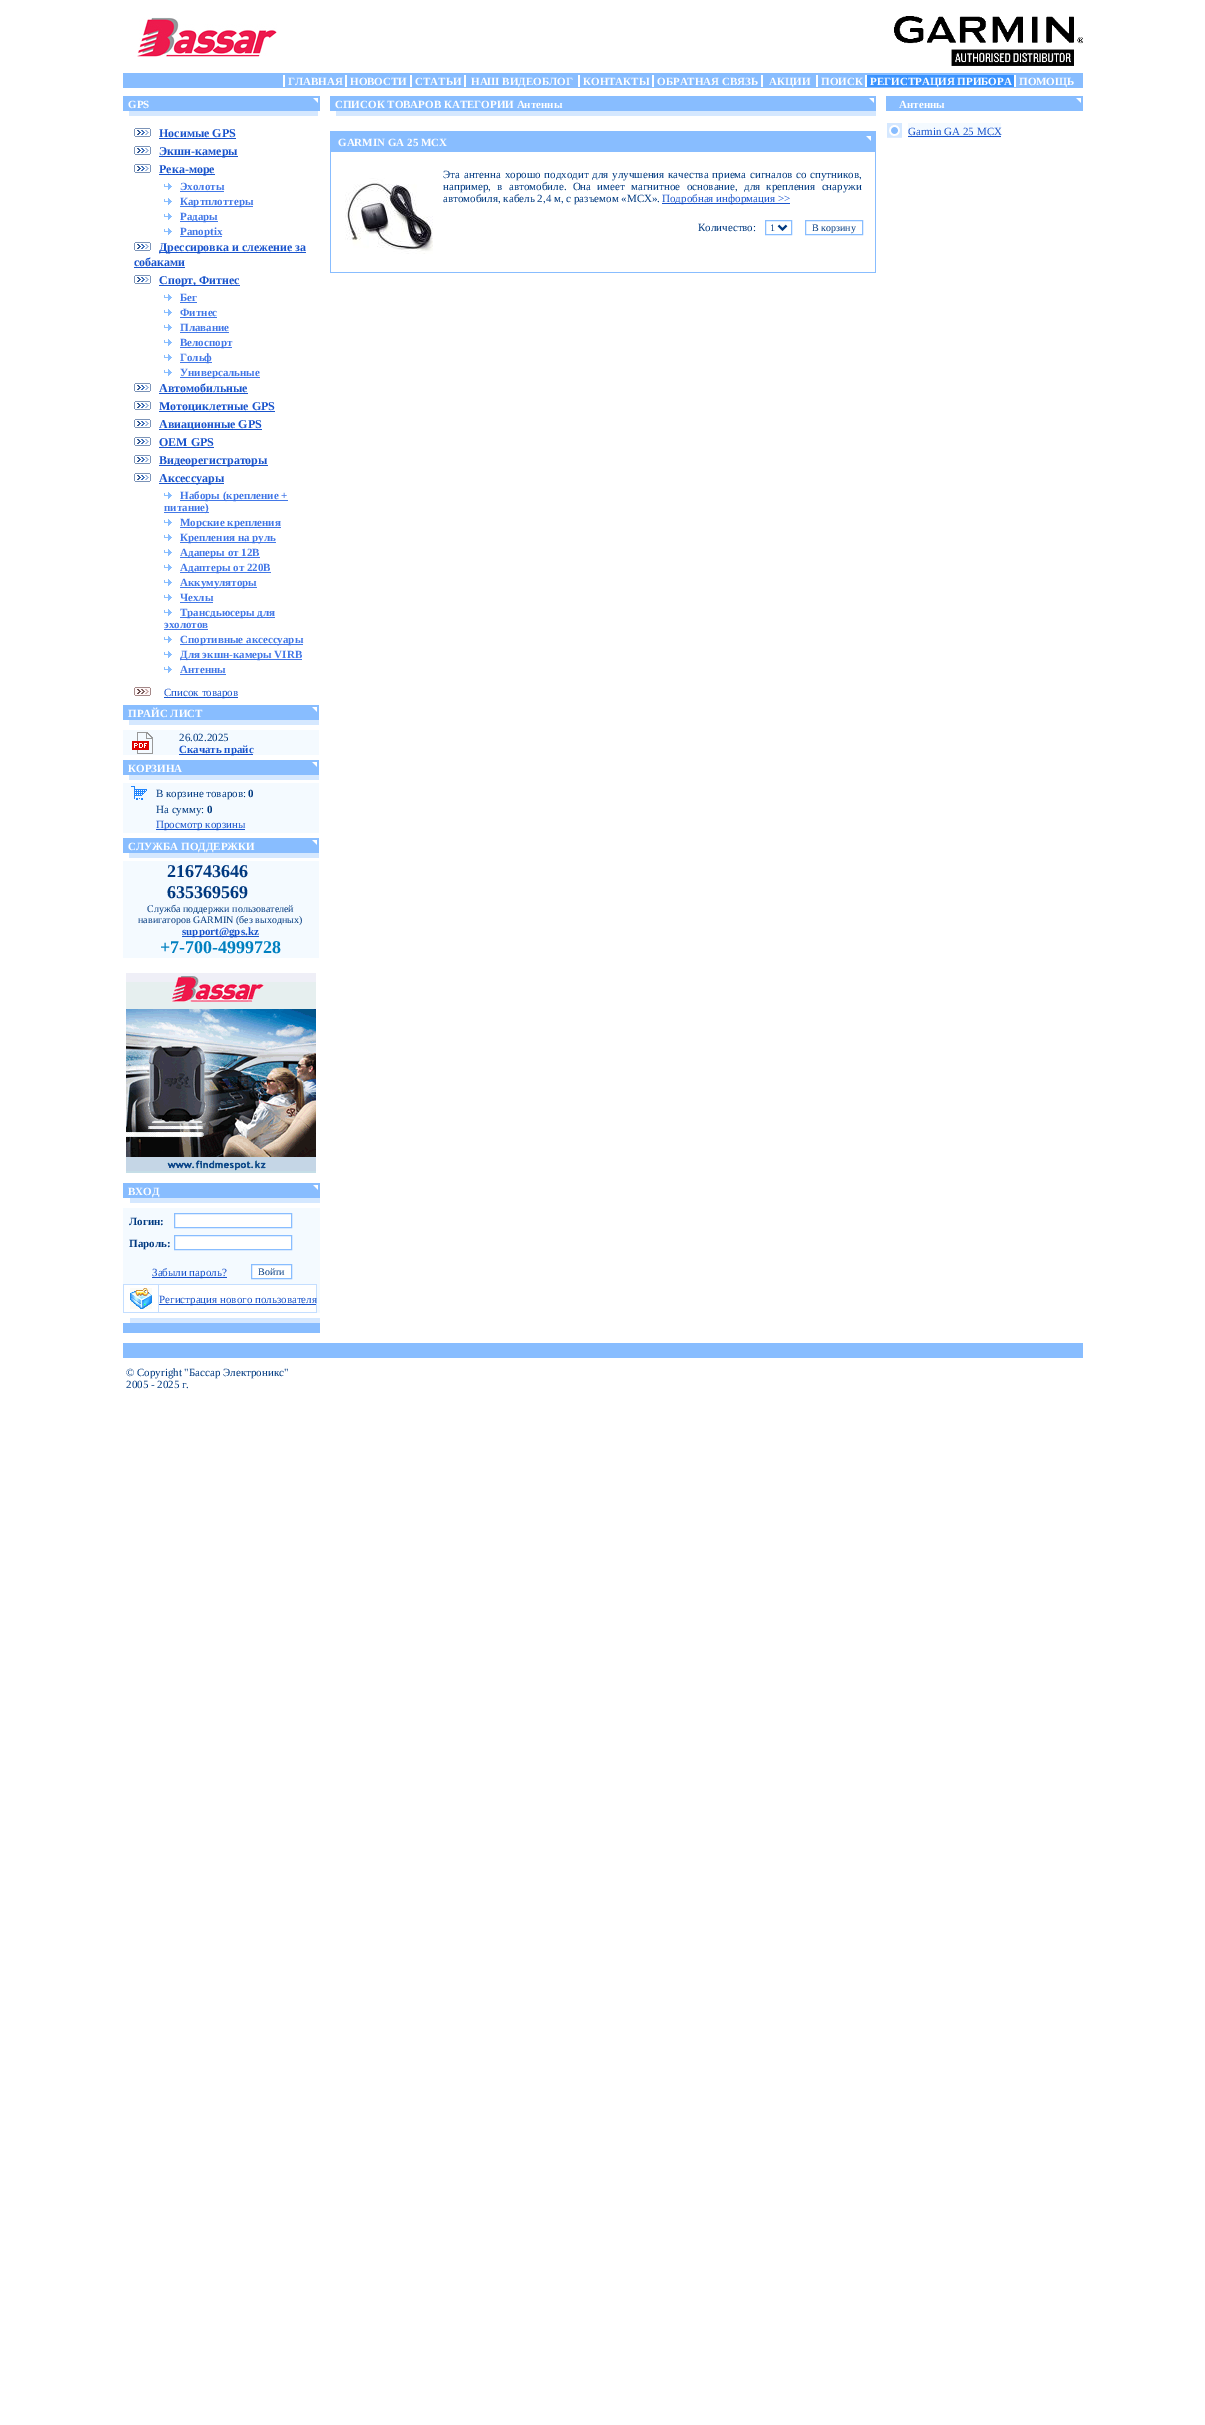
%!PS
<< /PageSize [1205 2425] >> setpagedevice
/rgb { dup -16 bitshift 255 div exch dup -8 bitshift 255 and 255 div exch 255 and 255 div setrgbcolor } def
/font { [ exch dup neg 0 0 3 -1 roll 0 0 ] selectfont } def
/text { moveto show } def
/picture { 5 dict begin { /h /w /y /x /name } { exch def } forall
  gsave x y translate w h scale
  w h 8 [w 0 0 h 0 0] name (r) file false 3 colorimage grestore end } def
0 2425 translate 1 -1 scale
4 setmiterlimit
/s1 { /LiberationSerif-Bold 11 font 16#FFFFFF rgb } def
/s2 { /LiberationSerif-Bold 12 font 16#1A54CC rgb } def
/s3 { /LiberationSerif-Bold 11 font 16#4378E7 rgb } def
/s4 { /LiberationSerif-Regular 11 font 16#1A54CC rgb } def
/s5 { /LiberationSerif-Regular 11 font 16#003980 rgb } def
/s6 { /LiberationSerif-Bold 11 font 16#1A54CC rgb } def
/s7 { /LiberationSerif-Bold 11 font 16#003980 rgb } def
/s8 { /LiberationSerif-Bold 18 font 16#003980 rgb } def
/s9 { /LiberationSerif-Regular 10 font 16#003980 rgb } def
/s10 { /LiberationSerif-Bold 18 font 16#0080C0 rgb } def
16#FFFFFF rgb
0 0 1205 2425 rectfill
(pic1.raw) 137 17 140 40 picture
(pic2.raw) 894 16 189 50 picture
16#88BDFF rgb
123 73 960 15 rectfill
16#FFFFFF rgb
283 75 2 12 rectfill
s1
(ГЛАВНАЯ) 288 85 text
345 75 2 12 rectfill
(НОВОСТИ) 350 85 text
410 75 2 12 rectfill
(СТАТЬИ) 415 85 text
464 75 2 12 rectfill
(НАШ ВИДЕОБЛОГ) 471 85 text
578 75 2 12 rectfill
(КОНТАКТЫ) 583 85 text
652 75 2 12 rectfill
(ОБРАТНАЯ СВЯЗЬ) 657 85 text
761 75 2 12 rectfill
(АКЦИИ) 769 85 text
816 75 2 12 rectfill
(ПОИСК) 821 85 text
865 75 2 12 rectfill
16#3C94FF rgb
867 75 147 12 rectfill
s1
(РЕГИСТРАЦИЯ ПРИБОРА) 870 85 text
1014 75 2 12 rectfill
(ПОМОЩЬ) 1019 85 text
16#88BDFF rgb
123 96 197 15 rectfill
s1
(GPS) 128 108 text
(pic3.raw) 313 98 5 5 picture
16#D5E8FF rgb
129 111 189 5 rectfill
(pic4.raw) 134 128 17 9 picture
s2
(Носимые GPS) 159 137 text
159 138 77 1 rectfill
(pic4.raw) 134 146 17 9 picture
159 156 79 1 rectfill
(Экшн-камеры) 159 155 text
(pic4.raw) 134 164 17 9 picture
159 174 56 1 rectfill
(Река-море) 159 173 text
(pic5.raw) 164 183 8 7 picture
s3
(Эхолоты) 180 190 text
180 191 44 1 rectfill
(pic5.raw) 164 198 8 7 picture
180 206 73 1 rectfill
(Картплоттеры) 180 205 text
(pic5.raw) 164 213 8 7 picture
180 221 38 1 rectfill
(Радары) 180 220 text
(pic5.raw) 164 228 8 7 picture
180 236 42 1 rectfill
(Panoptix) 180 235 text
(pic4.raw) 134 242 17 9 picture
16#1A54CC rgb
159 252 147 1 rectfill
s2
(Дрессировка и слежение за) 159 251 text
(собаками) 134 266 text
134 267 51 1 rectfill
(pic4.raw) 134 275 17 9 picture
159 285 81 1 rectfill
(Спорт, Фитнес) 159 284 text
(pic5.raw) 164 294 8 7 picture
s3
(Бег) 180 301 text
180 302 17 1 rectfill
(pic5.raw) 164 309 8 7 picture
(Фитнес) 180 316 text
180 317 37 1 rectfill
(pic5.raw) 164 324 8 7 picture
(Плавание) 180 331 text
180 332 49 1 rectfill
(pic5.raw) 164 339 8 7 picture
180 347 52 1 rectfill
(Велоспорт) 180 346 text
(pic5.raw) 164 354 8 7 picture
180 362 32 1 rectfill
(Гольф) 180 361 text
(pic5.raw) 164 369 8 7 picture
180 377 80 1 rectfill
(Универсальные) 180 376 text
(pic4.raw) 134 383 17 9 picture
s2
(Автомобильные) 159 392 text
159 393 89 1 rectfill
(pic4.raw) 134 401 17 9 picture
159 411 116 1 rectfill
(Мотоциклетные GPS) 159 410 text
(pic4.raw) 134 419 17 9 picture
159 429 103 1 rectfill
(Авиационные GPS) 159 428 text
(pic4.raw) 134 437 17 9 picture
(OEM GPS) 159 446 text
159 447 55 1 rectfill
(pic4.raw) 134 455 17 9 picture
159 465 109 1 rectfill
(Видеорегистраторы) 159 464 text
(pic4.raw) 134 473 17 9 picture
159 483 65 1 rectfill
(Аксессуары) 159 482 text
(pic5.raw) 164 492 8 7 picture
16#4378E7 rgb
180 500 108 1 rectfill
s3
(Наборы \(крепление +) 180 499 text
164 512 45 1 rectfill
(питание\)) 164 511 text
(pic5.raw) 164 519 8 7 picture
180 527 101 1 rectfill
(Морские крепления) 180 526 text
(pic5.raw) 164 534 8 7 picture
180 542 96 1 rectfill
(Крепления на руль) 180 541 text
(pic5.raw) 164 549 8 7 picture
180 557 80 1 rectfill
(Адаперы от 12В) 180 556 text
(pic5.raw) 164 564 8 7 picture
180 572 91 1 rectfill
(Адаптеры от 220В) 180 571 text
(pic5.raw) 164 579 8 7 picture
180 587 77 1 rectfill
(Аккумуляторы) 180 586 text
(pic5.raw) 164 594 8 7 picture
(Чехлы) 180 601 text
180 602 33 1 rectfill
(pic5.raw) 164 609 8 7 picture
180 617 95 1 rectfill
(Трансдьюсеры для) 180 616 text
(эхолотов) 164 628 text
164 629 44 1 rectfill
(pic5.raw) 164 636 8 7 picture
180 644 123 1 rectfill
(Спортивные аксессуары) 180 643 text
(pic5.raw) 164 651 8 7 picture
180 659 122 1 rectfill
(Для экшн-камеры VIRB) 180 658 text
(pic5.raw) 164 666 8 7 picture
(Антенны) 180 673 text
180 674 46 1 rectfill
(pic6.raw) 134 687 17 9 picture
16#1A54CC rgb
164 697 74 1 rectfill
s4
(Список товаров) 164 696 text
16#88BDFF rgb
123 705 196 15 rectfill
s1
(ПРАЙС ЛИСТ) 128 717 text
(pic3.raw) 312 707 5 5 picture
16#D5E8FF rgb
129 720 190 5 rectfill
16#F4FAFF rgb
123 730 196 25 rectfill
(pic7.raw) 132 732 21 22 picture
s5
(26.02.2025) 179 741 text
16#1A54CC rgb
179 754 74 1 rectfill
s6
(Скачать прайс) 179 753 text
16#88BDFF rgb
123 760 196 15 rectfill
s1
(КОРЗИНА) 128 772 text
(pic3.raw) 312 762 5 5 picture
16#D5E8FF rgb
129 775 190 5 rectfill
16#F4FAFF rgb
123 783 196 50 rectfill
(pic8.raw) 131 786 16 14 picture
s5
(В корзине товаров:) 156 797 text
s7
(0) 248 797 text
s5
(На сумму:) 156 813 text
s7
(0) 207 813 text
16#1A54CC rgb
156 829 89 1 rectfill
s4
(Просмотр корзины) 156 828 text
16#88BDFF rgb
123 838 196 15 rectfill
s1
(СЛУЖБА ПОДДЕРЖКИ) 128 850 text
(pic3.raw) 312 840 5 5 picture
16#D5E8FF rgb
129 853 190 5 rectfill
16#F4FAFF rgb
123 861 196 97 rectfill
s8
(216743646) 167 877 text
(635369569) 167 898 text
s9
(Служба поддержки пользователей) 147 912 text
(навигаторов GARMIN \(без выходных\)) 138 923 text
16#1A54CC rgb
182 936 77 1 rectfill
s6
(support@gps.kz) 182 935 text
s10
(+7-700-4999728) 160 953 text
(pic9.raw) 126 973 190 200 picture
16#88BDFF rgb
123 1183 197 15 rectfill
s1
(ВХОД) 128 1195 text
(pic3.raw) 313 1185 5 5 picture
16#D5E8FF rgb
130 1198 190 5 rectfill
16#F4FAFF rgb
123 1208 197 105 rectfill
s7
(Логин:) 129 1225 text
16#FFFFFF rgb
174.5 1213.5 moveto 291.5 1213.5 lineto 291.5 1227.5 lineto 174.5 1227.5 lineto closepath gsave fill grestore
16#88BDFF rgb
stroke
s7
(Пароль:) 129 1247 text
16#FFFFFF rgb
174.5 1235.5 moveto 291.5 1235.5 lineto 291.5 1249.5 lineto 174.5 1249.5 lineto closepath gsave fill grestore
16#88BDFF rgb
stroke
16#1A54CC rgb
152 1277 75 1 rectfill
s4
(Забыли пароль?) 152 1276 text
16#FFFFFF rgb
251.5 1264.5 moveto 291.5 1264.5 lineto 291.5 1278.5 lineto 251.5 1278.5 lineto closepath gsave fill grestore
16#88BDFF rgb
stroke
s9
(Войти) 258 1275 text
16#C4DEFF rgb
123 1284 194 29 rectfill
16#FFFFFF rgb
124 1285 34 27 rectfill
(pic10.raw) 130 1288 22 21 picture
159 1285 157 27 rectfill
16#1A54CC rgb
159 1304 157 1 rectfill
s4
(Регистрация нового пользователя) 159 1303 text
16#D5E8FF rgb
130 1318 190 5 rectfill
16#88BDFF rgb
123 1323 197 10 rectfill
330 96 546 15 rectfill
s1
(СПИСОК ТОВАРОВ КАТЕГОРИИ Антенны) 335 108 text
(pic3.raw) 869 98 5 5 picture
16#D5E8FF rgb
336 111 540 5 rectfill
16#88BDFF rgb
330 131 546 142 rectfill
s1
(GARMIN GA 25 MCX) 338 146 text
(pic3.raw) 866 136 5 5 picture
331 152 544 120 rectfill
(pic11.raw) 345 178 88 76 picture
/LiberationSerif-Regular 11 font
16#003980 rgb
443 178 moveto 1 0 32 (Эта антенна хорошо подходит для улучшения качества приема сигналов со спутников,) widthshow
443 190 moveto 3.5 0 32 (например, в автомобиле. Она имеет магнитное основание, для крепления снаружи) widthshow
(автомобиля, кабель 2,4 м, с разъемом «MCX».) 443 202 text
16#1A54CC rgb
662 203 128 1 rectfill
(Подробная информация >>) 662 202 text
s5
(Количество:) 698 231 text
16#88BDFF rgb
765.5 220.5 26 14 rectstroke
16#003980 rgb
2 setlinewidth
778.5 225.5 moveto 782.5 229.5 lineto 786.5 225.5 lineto stroke
s9
(1) 770 231 text
16#88BDFF rgb
1 setlinewidth
805.5 220.5 57 14 rectstroke
s9
(В корзину) 812 231 text
16#88BDFF rgb
886 96 197 15 rectfill
s1
(Антенны) 899 108 text
(pic3.raw) 1076 98 5 5 picture
(pic12.raw) 887 123 15 15 picture
16#F4FAFF rgb
908 123 93 15 rectfill
s4
(Garmin GA 25 MCX) 908 135 text
908 136 93 1 rectfill
16#88BDFF rgb
123 1343 960 15 rectfill
s5
(© Copyright "Бассар Электроникс") 126 1376 text
(2005 - 2025 г.) 126 1388 text
showpage
